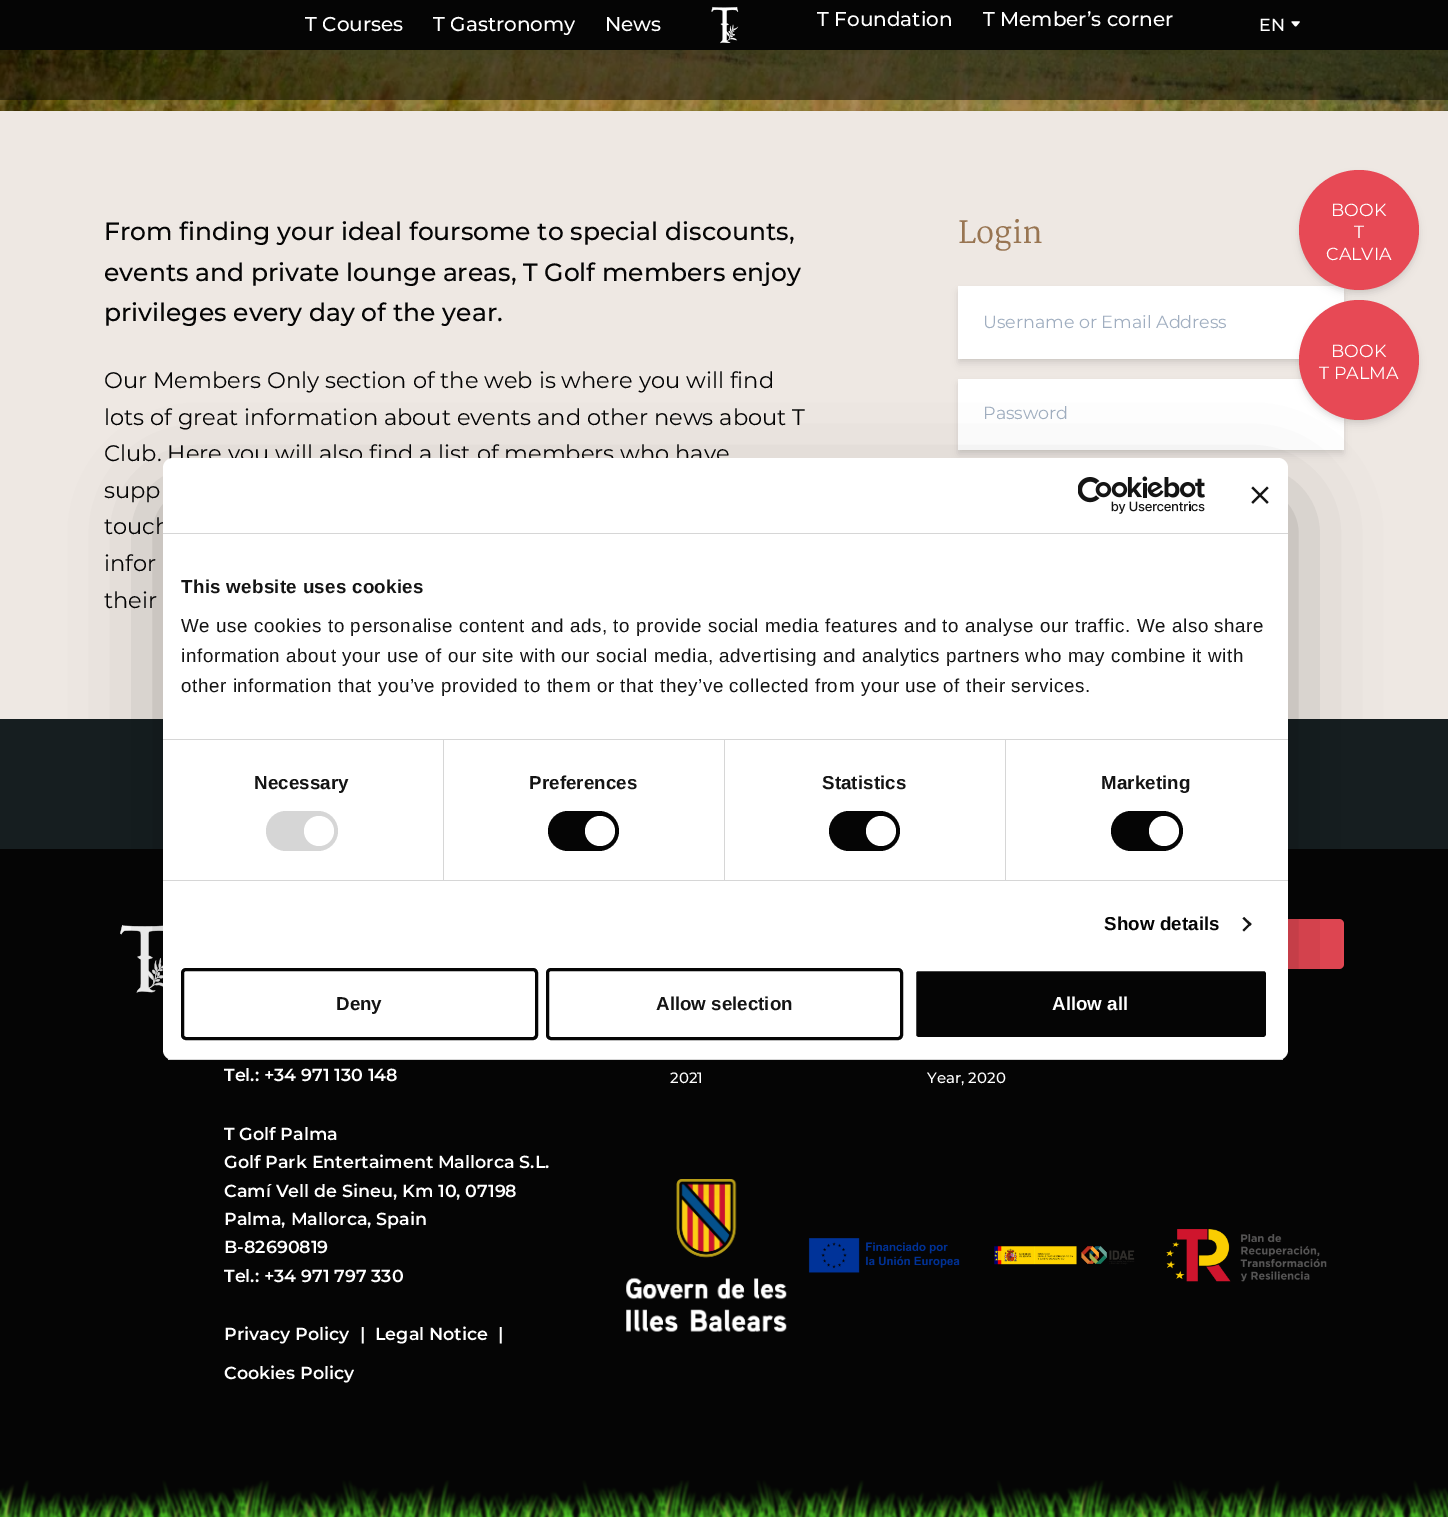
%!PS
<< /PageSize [1448 1517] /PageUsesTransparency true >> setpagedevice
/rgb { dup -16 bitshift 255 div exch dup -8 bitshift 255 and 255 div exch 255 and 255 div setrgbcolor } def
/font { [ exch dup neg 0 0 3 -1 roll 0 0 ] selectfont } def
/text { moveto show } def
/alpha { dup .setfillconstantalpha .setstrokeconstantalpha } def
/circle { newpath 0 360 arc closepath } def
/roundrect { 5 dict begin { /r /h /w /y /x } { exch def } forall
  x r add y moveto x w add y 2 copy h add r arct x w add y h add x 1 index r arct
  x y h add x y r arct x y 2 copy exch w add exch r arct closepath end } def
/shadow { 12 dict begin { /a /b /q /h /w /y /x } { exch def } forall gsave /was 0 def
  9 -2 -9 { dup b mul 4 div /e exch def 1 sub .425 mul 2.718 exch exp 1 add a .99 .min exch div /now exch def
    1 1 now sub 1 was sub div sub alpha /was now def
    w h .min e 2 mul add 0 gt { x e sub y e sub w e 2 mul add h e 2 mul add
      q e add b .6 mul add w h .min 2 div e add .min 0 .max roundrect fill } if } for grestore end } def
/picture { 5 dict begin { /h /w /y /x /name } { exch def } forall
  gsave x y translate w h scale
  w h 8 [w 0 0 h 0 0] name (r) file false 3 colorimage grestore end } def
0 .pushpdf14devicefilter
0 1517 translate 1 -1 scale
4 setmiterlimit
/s1 { /Montserrat-Medium 20 font 16#FFFFFF rgb } def
/s2 { /Montserrat-Medium 17.5 font 16#FFFFFF rgb } def
/s3 { /Montserrat-Medium 25 font 16#050505 rgb } def
/s4 { /Montserrat-Regular 22.5 font 16#050505 rgb } def
/s5 { /Martel-Regular 30 font 16#987552 rgb } def
/s6 { /Montserrat-Regular 17.5 font 16#A0AEC0 rgb } def
/s7 { /Montserrat-Regular 17.5 font 16#FFFFFF rgb } def
/s8 { /LiberationSans-Bold 18.75 font 16#141414 rgb } def
/s9 { /LiberationSans-Bold 18.75 font 16#FFFFFF rgb } def
/s10 { /Montserrat-SemiBold 17.5 font 16#FFFFFF rgb } def
/s11 { /Montserrat-Medium 15 font 16#FFFFFF rgb } def
16#FFFFFF rgb
0 0 1448 1517 rectfill
16#050505 rgb
0 0 1448 50 rectfill
s1
(T Courses) 305 31 text
(T Gastronomy) 433 31 text
(News) 605 31 text
(pic1.raw) 711 6 28 38 picture
(T Foundation) 817 26 text
(T Member’s corner) 983 26 text
s2
(EN) 1259 31 text
(pic2.raw) 1291 21 9 6 picture
(pic3.raw) 0 50 1448 61 picture
0.5 alpha
16#000000 rgb
0 50 1448 50 rectfill
1 alpha
16#EEE8E3 rgb
0 111 1448 608 rectfill
s3
(From finding your ideal foursome to special discounts,) 104 240 text
(events and private lounge areas, T Golf members enjoy) 104 281 text
(privileges every day of the year.) 104 321 text
s4
(Our Members Only section of the web is where you will find) 104 388 text
(lots of great information about events and other news about T) 104 425 text
(Club. Here you will also find a list of members who have) 104 461 text
(supp) 104 498 text
(touch) 104 534 text
(infor) 104 571 text
(their) 104 608 text
s5
(Login) 958 243 text
16#000000 rgb
959 290 384 70 0 2.5 0.06 shadow
959 293 384 70 0 4 0.1 shadow
16#FFFFFF rgb
958 286 386 73 rectfill
s6
(Username or Email Address) 983 328 text
16#000000 rgb
959 383 384 68 0 2.5 0.06 shadow
959 385 384 69 0 4 0.1 shadow
16#FFFFFF rgb
958 379 386 71 rectfill
s6
(Password) 983 419 text
16#000000 rgb
1300 174 118 117 58.5 2.5 0.06 shadow
1300 176 118 118 59 4 0.1 shadow
16#E74955 rgb
1359 230 60 circle fill
s7
(BOOK) 1331 216 text
(T) 1354 238 text
(CALVIA) 1326 260 text
16#000000 rgb
1300 304 118 117 58.5 2.5 0.06 shadow
1300 306 118 118 59 4 0.1 shadow
16#E74955 rgb
1359 360 60 circle fill
s7
(BOOK) 1331 357 text
(T PALMA) 1319 379 text
16#161E20 rgb
0 719 1448 130 rectfill
16#050505 rgb
0 849 1448 668 rectfill
(pic6.raw) 120 925 43 68 picture
16#E74955 rgb
1054 919 290 50 5 roundrect fill
(pic7.raw) 626 1179 161 153 picture
16#000000 rgb
163 498 1125 602 10 42.5 0.3 shadow
16#FFFFFF rgb
163 458 1125 602 10 roundrect fill
16#D6D6D6 rgb
163 533 1125 1 rectfill
(pic4.raw) 1078 476 127 38 picture
(pic5.raw) 1251 486 18 18 picture
163 739 1125 1 rectfill
/LiberationSans-Bold 18.75 font
16#141414 rgb
181 593 moveto 0.3 0 (This website uses cookies) ashow
/LiberationSans-Regular 18.75 font
181 632 moveto 0.62 0 (We use cookies to personalise content and ads, to provide social media features and to analyse our traffic. We also share) ashow
181 662 moveto 0.62 0 (information about your use of our site with our social media, advertising and analytics partners who may combine it with) ashow
181 692 moveto 0.62 0 (other information that you’ve provided to them or that they’ve collected from your use of their services.) ashow
16#D6D6D6 rgb
163 880 1125 1 rectfill
443 740 1 140 rectfill
/LiberationSans-Bold 18.75 font
16#141414 rgb
254 789 moveto 0.1 0 (Necessary) ashow
16#D6D6D6 rgb
266 811 72 40 20 roundrect fill
16#FFFFFF rgb
319 831 15 circle fill
16#D6D6D6 rgb
724 740 1 140 rectfill
16#141414 rgb
529 789 moveto 0.1 0 (Preferences) ashow
16#050505 rgb
548 811 71 40 20 roundrect fill
16#FFFFFF rgb
600 831 15 circle fill
16#D6D6D6 rgb
1005 740 1 140 rectfill
16#141414 rgb
822 789 moveto 0.1 0 (Statistics) ashow
16#050505 rgb
829 811 71 40 20 roundrect fill
16#FFFFFF rgb
881 831 15 circle fill
16#141414 rgb
1101 789 moveto 0.1 0 (Marketing) ashow
16#050505 rgb
1111 811 72 40 20 roundrect fill
16#FFFFFF rgb
1164 831 15 circle fill
16#050505 rgb
1104 930 moveto 0.1 0 (Show details) ashow
16#141414 rgb
1244 917 moveto 1251.5 924 lineto 1250 926 lineto 1242.5 918.5 lineto closepath fill
1250 922.5 moveto 1251.5 924 lineto 1244 931.5 lineto 1242.5 930 lineto closepath fill
gsave
163 458 1125 602 10 roundrect clip newpath
16#D6D6D6 rgb
163 1059 1125 1 rectfill
grestore
16#050505 rgb
3 setlinewidth
182.5 969.5 354 69 3.5 roundrect stroke
s8
(Deny) 336 1010 text
16#050505 rgb
547.5 969.5 354 69 3.5 roundrect stroke
s8
(Allow selection) 656 1010 text
16#050505 rgb
914.5 969.5 353 69 3.5 roundrect gsave fill grestore
16#FFFFFF rgb
stroke
(Allow all) 1052 1010 text
s10
(Tel.: +34 971 130 148) 224 1081 text
(T Golf Palma) 224 1140 text
(Golf Park Entertaiment Mallorca S.L.) 224 1168 text
(Camí Vell de Sineu, Km 10, 07198) 224 1197 text
(Palma, Mallorca, Spain) 224 1225 text
(B-82690819) 224 1253 text
(Tel.: +34 971 797 330) 224 1282 text
(Privacy Policy) 224 1340 text
(|) 360 1340 text
(Legal Notice) 375 1340 text
(|) 498 1340 text
(Cookies Policy) 224 1379 text
s11
(2021) 670 1083 text
(Year, 2020) 927 1083 text
(pic8.raw) 808 1238 152 35 picture
(pic9.raw) 994 1246 141 19 picture
(pic10.raw) 1166 1229 161 53 picture
(pic11.raw) 0 1480 1448 37 picture
.poppdf14devicefilter showpage
